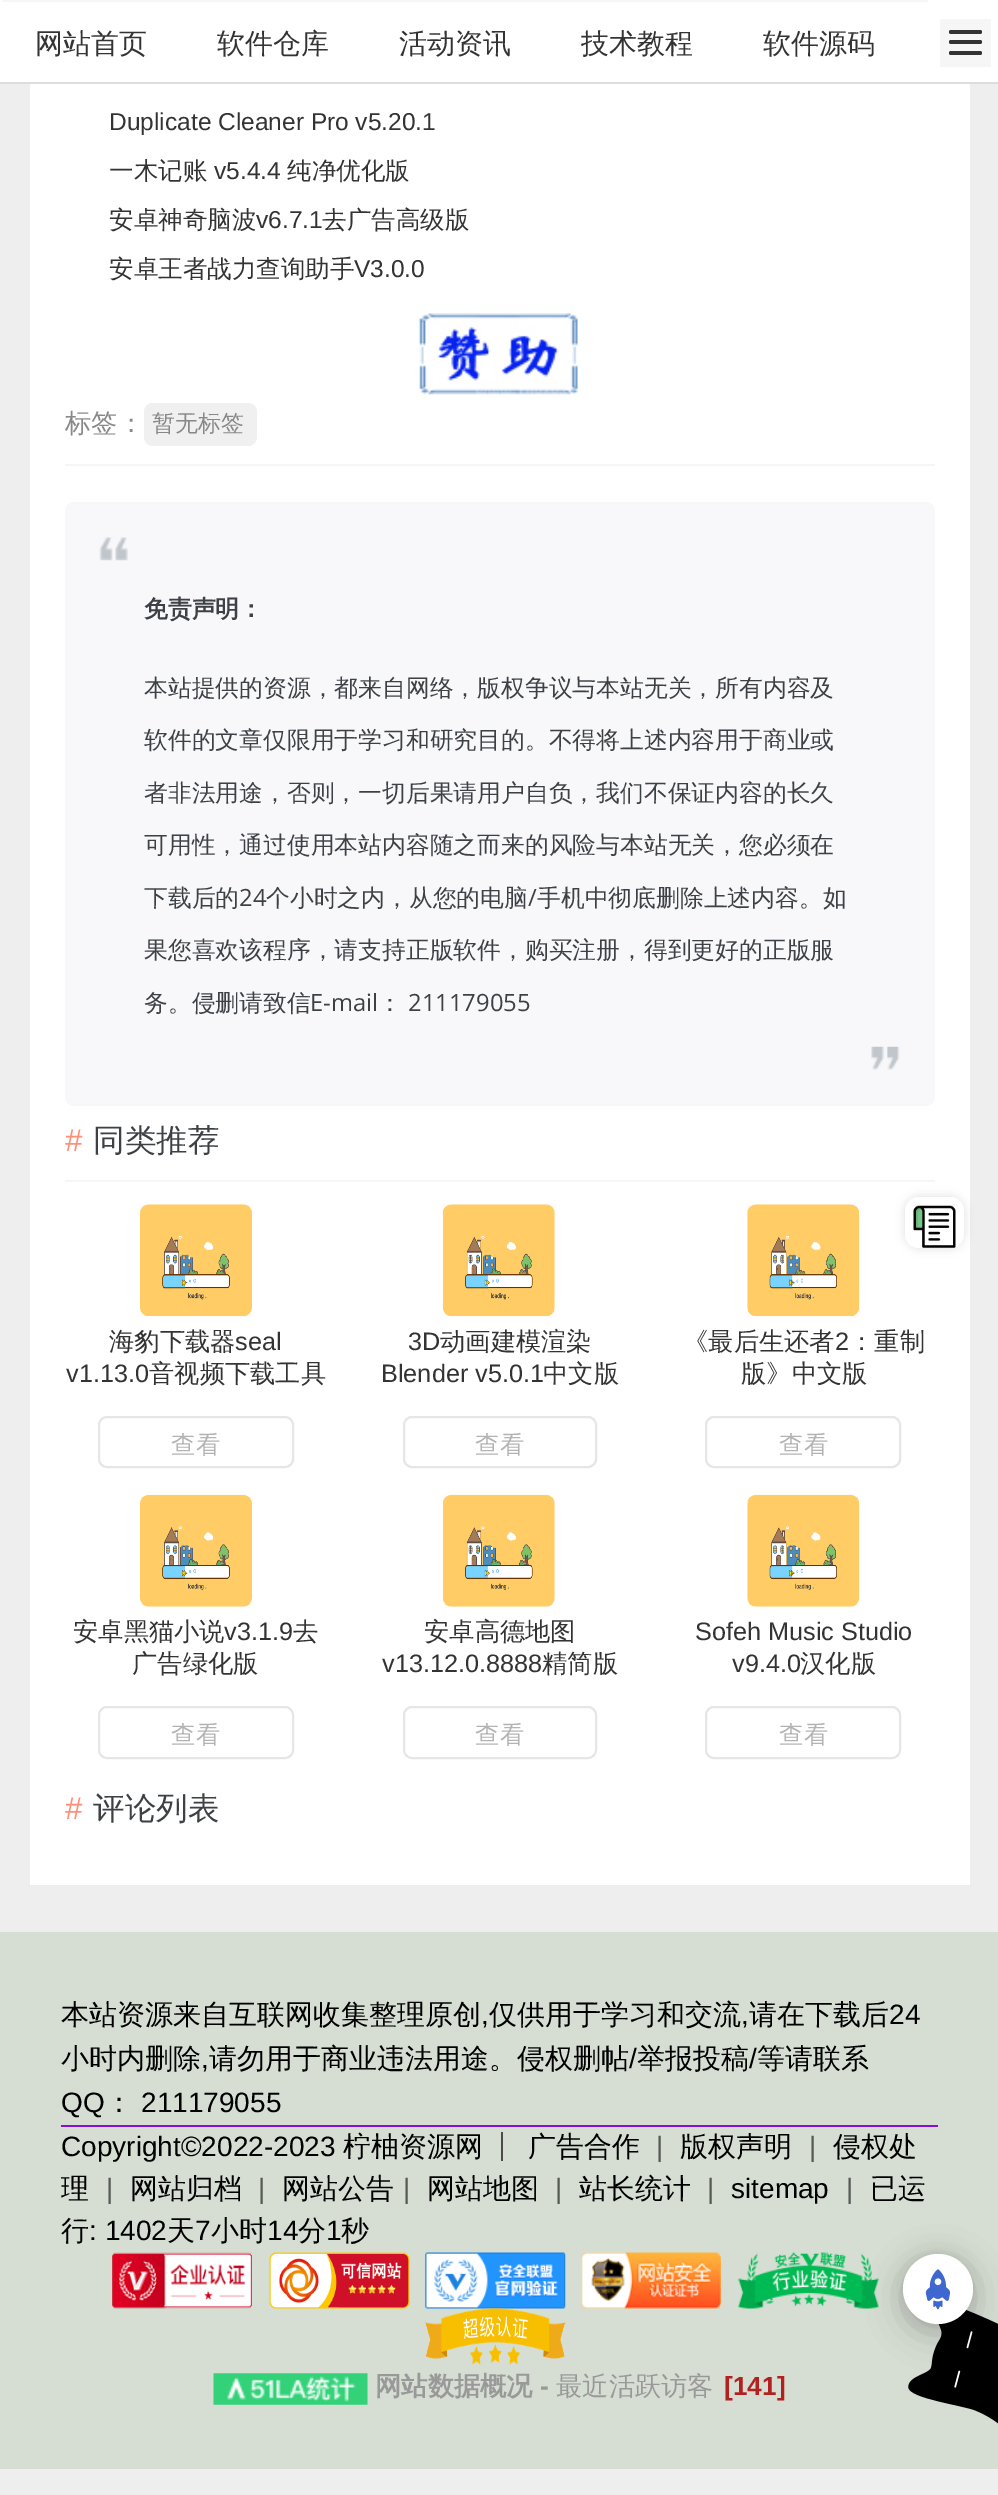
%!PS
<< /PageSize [998 2495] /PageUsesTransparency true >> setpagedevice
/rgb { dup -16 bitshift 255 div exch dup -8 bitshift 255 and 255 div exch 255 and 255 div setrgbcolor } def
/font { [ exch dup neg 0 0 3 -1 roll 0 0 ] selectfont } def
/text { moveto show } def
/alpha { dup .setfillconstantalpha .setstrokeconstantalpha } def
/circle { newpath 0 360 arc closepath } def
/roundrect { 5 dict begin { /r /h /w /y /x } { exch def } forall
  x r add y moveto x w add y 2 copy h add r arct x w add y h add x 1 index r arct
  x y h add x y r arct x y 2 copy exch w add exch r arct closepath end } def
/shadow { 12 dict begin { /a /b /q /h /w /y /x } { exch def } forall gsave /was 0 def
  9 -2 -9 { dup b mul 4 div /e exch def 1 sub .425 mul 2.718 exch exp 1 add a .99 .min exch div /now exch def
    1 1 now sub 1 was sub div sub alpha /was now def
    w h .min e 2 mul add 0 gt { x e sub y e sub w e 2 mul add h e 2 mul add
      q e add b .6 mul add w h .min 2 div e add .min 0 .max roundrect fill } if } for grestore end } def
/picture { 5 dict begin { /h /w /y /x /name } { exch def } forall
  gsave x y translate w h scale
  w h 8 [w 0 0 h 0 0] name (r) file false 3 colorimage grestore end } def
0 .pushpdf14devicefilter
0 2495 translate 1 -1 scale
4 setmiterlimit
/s1 { /WenQuanYiZenHei-Medium 28 font 16#333333 rgb } def
/s2 { /LiberationSans-Regular 24.5 font 16#333333 rgb } def
/s3 { /WenQuanYiZenHei-Medium 24.5 font 16#333333 rgb } def
/s4 { /WenQuanYiZenHei-Medium 26.25 font 16#888888 rgb } def
/s5 { /WenQuanYiZenHei-Medium 23 font 16#888888 rgb } def
/s6 { /WenQuanYiZenHei-Bold 23.8 font 16#3D4145 rgb } def
/s7 { /WenQuanYiZenHei-Medium 23.8 font 16#3D4145 rgb } def
/s8 { /OpenSans-Regular 23.8 font 16#3D4145 rgb } def
/s9 { /LiberationSans-Regular 31.5 font 16#FF8E78 rgb } def
/s10 { /WenQuanYiZenHei-Medium 31.5 font 16#3D4145 rgb } def
/s11 { /WenQuanYiZenHei-Medium 25.25 font 16#333333 rgb } def
/s12 { /LiberationSans-Regular 25.25 font 16#333333 rgb } def
/s13 { /WenQuanYiZenHei-Medium 24.5 font 16#B3B3B3 rgb } def
/s14 { /WenQuanYiZenHei-Medium 28 font 16#000000 rgb } def
/s15 { /LiberationSans-Regular 28 font 16#000000 rgb } def
/s16 { /LiberationSans-Regular 28 font 16#565954 rgb } def
/s17 { /WenQuanYiZenHei-Bold 26.25 font 16#999999 rgb } def
/s18 { /LiberationSans-Bold 26.25 font 16#999999 rgb } def
/s19 { /WenQuanYiZenHei-Medium 26.25 font 16#999999 rgb } def
/s20 { /LiberationSans-Bold 26.25 font 16#B32020 rgb } def
16#EEEEEE rgb
0 0 998 2495 rectfill
16#FFFFFF rgb
0 0 998 82 rectfill
16#DDDDDD rgb
0 82 998 2 rectfill
16#F6F6F6 rgb
2 0 926 2 rectfill
s1
(网站首页) 35 53 text
(软件仓库) 217 53 text
(活动资讯) 399 53 text
(技术教程) 581 53 text
(软件源码) 763 53 text
16#F6F6F6 rgb
940 19 51 48 rectfill
16#333333 rgb
949 30 33 4 2 roundrect fill
949 40 33 4 2 roundrect fill
949 51 33 4 2 roundrect fill
16#FFFFFF rgb
30 84 940 1801 rectfill
s2
(Duplicate Cleaner Pro v5.20.1) 109 130 text
s3
(一木记账) 109 179 text
s2
(v5.4.4) 214 179 text
s3
(纯净优化版) 287 179 text
(安卓神奇脑波) 109 228 text
s2
(v6.7.1) 256 228 text
s3
(去广告高级版) 322 228 text
(安卓王者战力查询助手) 109 277 text
s2
(V3.0.0) 354 277 text
(pic1.raw) 418 313 161 82 picture
16#F6F6F6 rgb
65 464 870 2 rectfill
s4
(标签：) 65 432 text
16#F0F0F0 rgb
144 403 113 43 9 roundrect fill
s5
(暂无标签) 152 431 text
16#F8F8FA rgb
65 502 870 604 9 roundrect fill
(pic2.raw) 99 537 29 24 picture
s6
(免责声明：) 144 617 text
s7
(本站提供的资源，都来自网络，版权争议与本站无关，所有内容及) 144 696 text
(软件的文章仅限用于学习和研究目的。不得将上述内容用于商业或) 144 748 text
(者非法用途，否则，一切后果请用户自负，我们不保证内容的长久) 144 801 text
(可用性，通过使用本站内容随之而来的风险与本站无关，您必须在) 144 853 text
(下载后的) 144 906 text
s8
(24) 239 906 text
s7
(个小时之内，从您的电脑) 266 906 text
s8
(/) 528 906 text
s7
(手机中彻底删除上述内容。如) 537 906 text
(果您喜欢该程序，请支持正版软件，购买注册，得到更好的正版服) 144 958 text
(务。侵删请致信) 144 1011 text
s8
(E-mail) 310 1011 text
s7
(：) 378 1011 text
s8
(211179055) 408 1011 text
(pic3.raw) 871 1046 29 24 picture
16#F6F6F6 rgb
65 1180 870 2 rectfill
s9
(#) 65 1151 text
s10
(同类推荐) 93 1151 text
(pic4.raw) 140 1204 112 113 picture
s11
(海豹下载器) 109 1350 text
s12
(seal) 235 1350 text
(v1.13.0) 66 1382 text
s11
(音视频下载工具) 149 1382 text
16#E6E6E6 rgb
2 setlinewidth
99 1417 194 50 8 roundrect stroke
s13
(查看) 171 1453 text
(pic5.raw) 442 1204 113 113 picture
s12
(3D) 408 1350 text
s11
(动画建模渲染) 440 1350 text
s12
(Blender v5.0.1) 381 1382 text
s11
(中文版) 543 1382 text
16#E6E6E6 rgb
404 1417 192 50 8 roundrect stroke
s13
(查看) 475 1453 text
(pic6.raw) 747 1204 113 113 picture
s11
(《最后生还者) 683 1350 text
s12
(2) 835 1350 text
s11
(：重制) 849 1350 text
(版》中文版) 741 1382 text
16#E6E6E6 rgb
706 1417 194 50 8 roundrect stroke
s13
(查看) 779 1453 text
(pic7.raw) 140 1494 112 113 picture
s11
(安卓黑猫小说) 73 1640 text
s12
(v3.1.9) 224 1640 text
s11
(去) 293 1640 text
(广告绿化版) 132 1672 text
16#E6E6E6 rgb
99 1707 194 51 8 roundrect stroke
s13
(查看) 171 1743 text
(pic8.raw) 442 1494 113 113 picture
s11
(安卓高德地图) 424 1640 text
s12
(v13.12.0.8888) 382 1672 text
s11
(精简版) 542 1672 text
16#E6E6E6 rgb
404 1707 192 51 8 roundrect stroke
s13
(查看) 475 1743 text
(pic9.raw) 747 1494 113 113 picture
s12
(Sofeh Music Studio) 695 1640 text
(v9.4.0) 732 1672 text
s11
(汉化版) 800 1672 text
16#E6E6E6 rgb
706 1707 194 51 8 roundrect stroke
s13
(查看) 779 1743 text
s9
(#) 65 1819 text
s10
(评论列表) 93 1819 text
16#000000 rgb
905 1197 59 51 14 5 0.12 shadow
16#FFFFFF rgb
905 1197 59 51 14 roundrect fill
(pic10.raw) 913 1205 43 43 picture
16#D6DED3 rgb
0 1932 998 537 rectfill
16#8A0CD5 rgb
61 2125 877 2 rectfill
s14
(本站资源来自互联网收集整理原创) 61 2024 text
s15
(,) 481 2024 text
s14
(仅供用于学习和交流) 489 2024 text
s15
(,) 741 2024 text
s14
(请在下载后) 749 2024 text
s15
(24) 889 2024 text
s14
(小时内删除) 61 2068 text
s15
(,) 201 2068 text
s14
(请勿用于商业违法用途。侵权删帖) 209 2068 text
s15
(/) 629 2068 text
s14
(举报投稿) 637 2068 text
s15
(/) 749 2068 text
s14
(等请联系) 757 2068 text
s15
(QQ) 61 2112 text
s14
(：) 105 2112 text
s15
(211179055) 141 2112 text
(Copyright©2022-2023) 61 2156 text
s14
(柠柚资源网) 343 2156 text
16#4B4B4B rgb
501 2132 2 29 rectfill
s14
(广告合作) 528 2156 text
s16
(|) 656 2156 text
s14
(版权声明) 680 2156 text
s16
(|) 809 2156 text
s14
(侵权处) 833 2156 text
(理) 61 2198 text
s16
(|) 106 2198 text
s14
(网站归档) 130 2198 text
s16
(|) 258 2198 text
s14
(网站公告) 282 2198 text
s16
(|) 403 2198 text
s14
(网站地图) 427 2198 text
s16
(|) 555 2198 text
s14
(站长统计) 579 2198 text
s16
(|) 707 2198 text
s15
(sitemap) 731 2198 text
s16
(|) 846 2198 text
s14
(已运) 870 2198 text
(行) 61 2240 text
s15
(: 1402) 89 2240 text
s14
(天) 167 2240 text
s15
(7) 195 2240 text
s14
(小时) 211 2240 text
s15
(14) 267 2240 text
s14
(分) 298 2240 text
s15
(1) 326 2240 text
s14
(秒) 341 2240 text
(pic11.raw) 908 2310 90 114 picture
(pic12.raw) 112 2252 140 57 picture
(pic13.raw) 269 2252 141 57 picture
(pic14.raw) 425 2252 141 57 picture
(pic15.raw) 581 2252 140 57 picture
(pic16.raw) 738 2252 141 57 picture
(pic17.raw) 425 2308 141 57 picture
(pic18.raw) 213 2373 155 32 picture
s17
(网站数据概况) 375 2395 text
s18
(-) 540 2395 text
s19
(最近活跃访客) 556 2395 text
s20
([141]) 724 2395 text
16#000000 rgb
903 2263 70 70 35 17.5 0.2 shadow
903 2254 70 70 35 9 0.1 shadow
16#FFFFFF rgb
938 2289 35 circle fill
(pic19.raw) 925 2269 26 41 picture
.poppdf14devicefilter showpage
